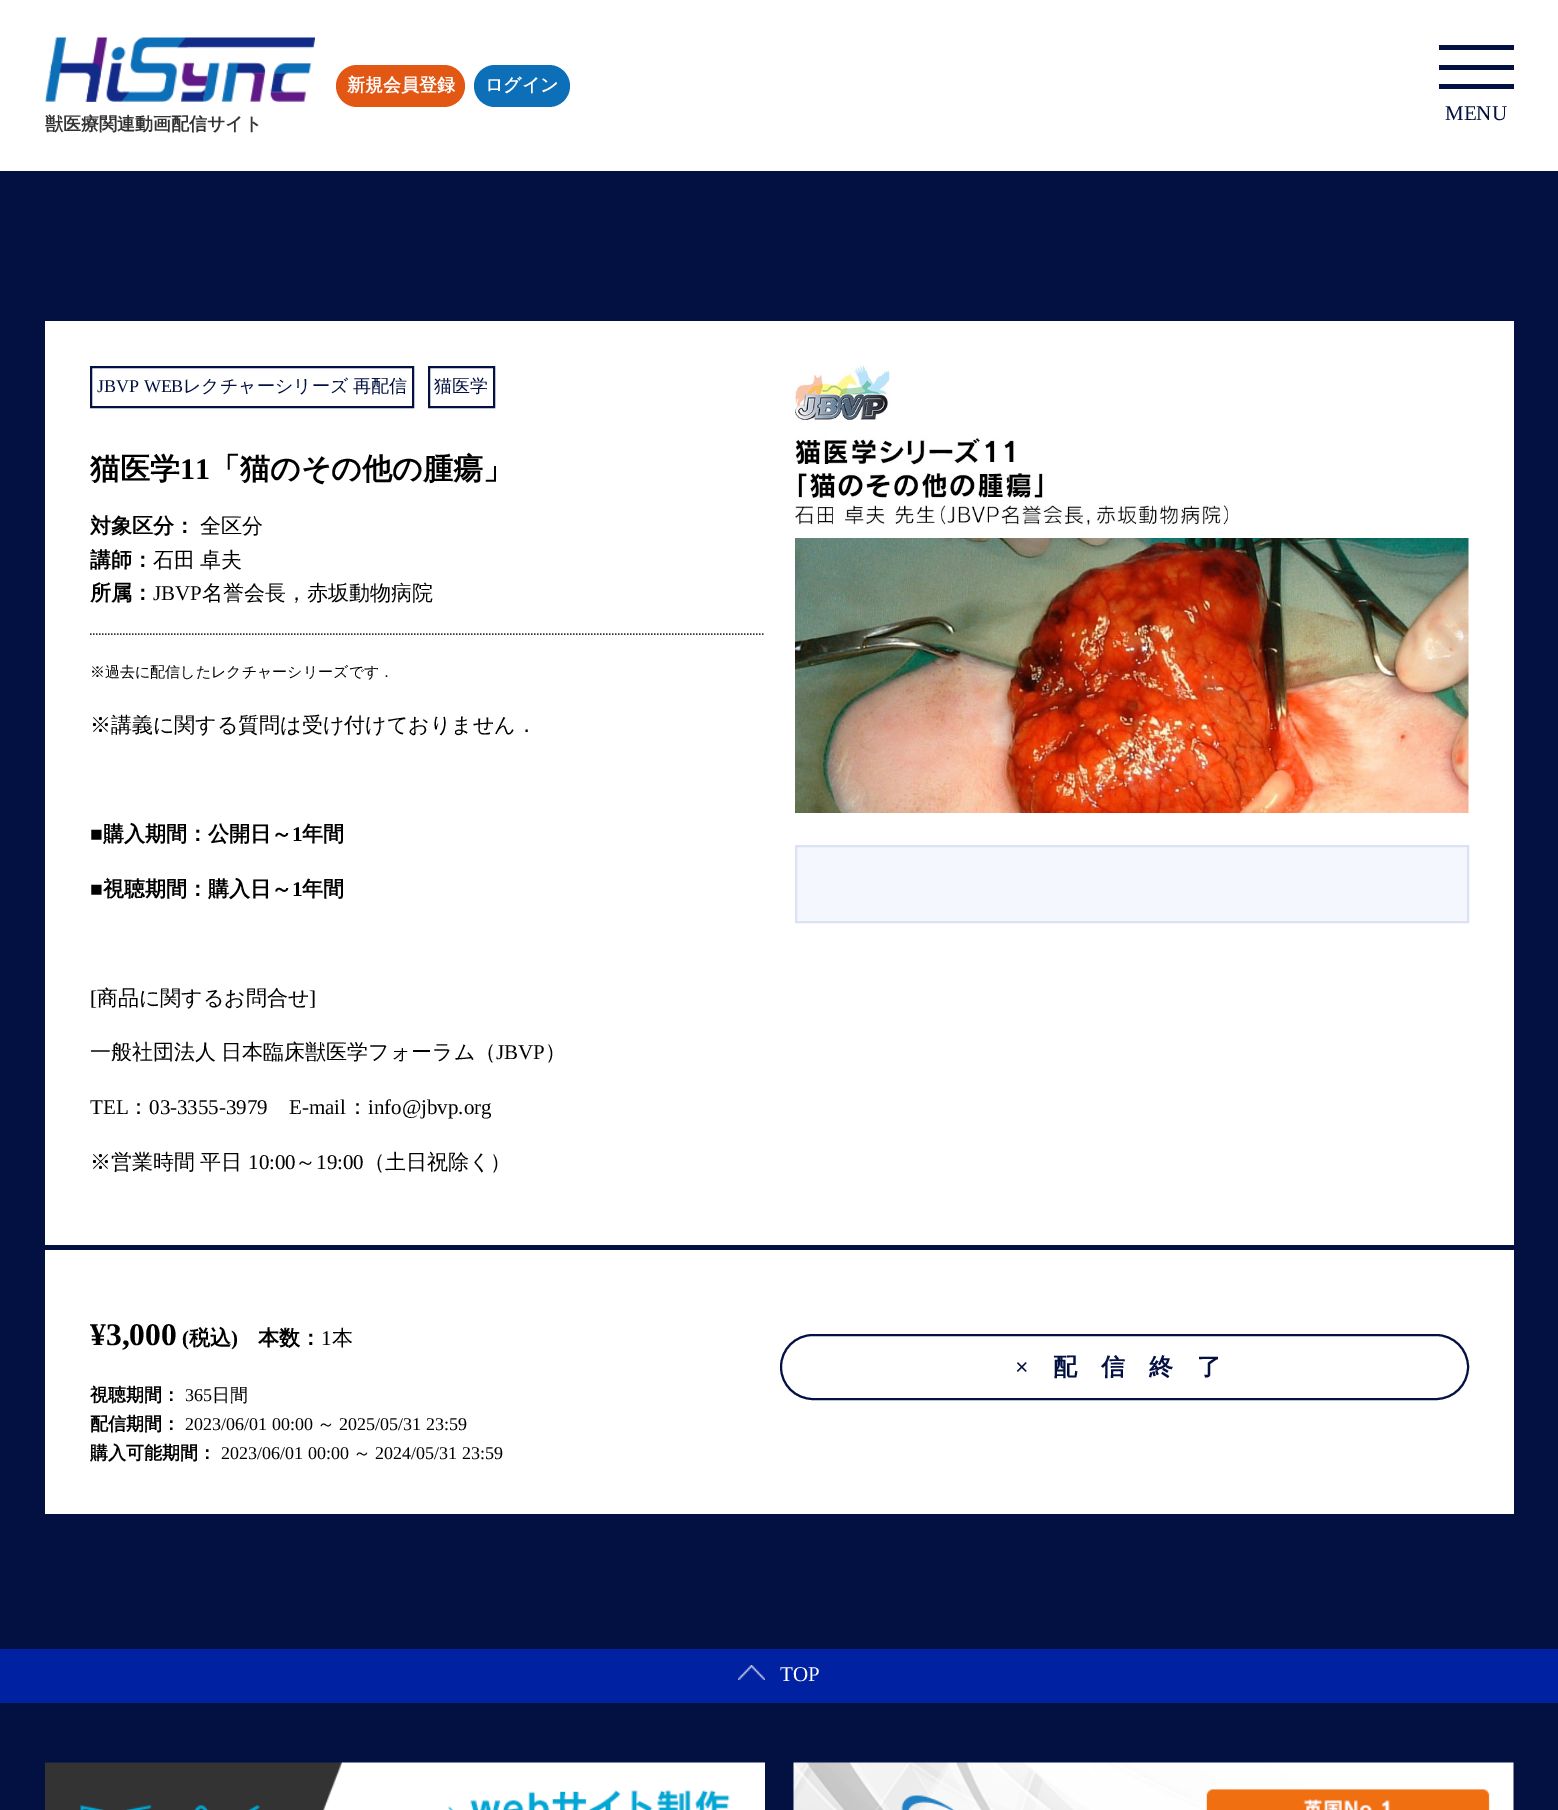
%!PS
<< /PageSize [1558 1810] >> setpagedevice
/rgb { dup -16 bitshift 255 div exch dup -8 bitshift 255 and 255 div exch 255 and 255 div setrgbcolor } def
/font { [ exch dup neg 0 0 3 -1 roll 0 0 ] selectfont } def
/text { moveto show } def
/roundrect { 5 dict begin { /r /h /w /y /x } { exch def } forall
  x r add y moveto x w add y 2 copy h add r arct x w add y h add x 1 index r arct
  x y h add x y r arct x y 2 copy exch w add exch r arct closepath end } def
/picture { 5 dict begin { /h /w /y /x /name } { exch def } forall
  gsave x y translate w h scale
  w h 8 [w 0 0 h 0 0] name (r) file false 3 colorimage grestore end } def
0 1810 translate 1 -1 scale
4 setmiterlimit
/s1 { /WenQuanYiZenHei-Bold 18 font 16#FFFFFF rgb } def
/s2 { /WenQuanYiZenHei-Bold 18 font 16#333333 rgb } def
/s3 { /LiberationSerif-Regular 21 font 16#031042 rgb } def
/s4 { /LiberationSerif-Regular 18 font 16#031042 rgb } def
/s5 { /WenQuanYiZenHei-Medium 18 font 16#031042 rgb } def
/s6 { /WenQuanYiZenHei-Bold 30 font 16#000000 rgb } def
/s7 { /LiberationSerif-Bold 30 font 16#000000 rgb } def
/s8 { /WenQuanYiZenHei-Bold 21 font 16#000000 rgb } def
/s9 { /WenQuanYiZenHei-Medium 21 font 16#000000 rgb } def
/s10 { /LiberationSerif-Regular 21 font 16#000000 rgb } def
/s11 { /WenQuanYiZenHei-Medium 15 font 16#000000 rgb } def
/s12 { /LiberationSerif-Bold 21 font 16#000000 rgb } def
/s13 { /LiberationSerif-Bold 31.5 font 16#000000 rgb } def
/s14 { /WenQuanYiZenHei-Bold 18 font 16#000000 rgb } def
/s15 { /LiberationSerif-Regular 18 font 16#000000 rgb } def
/s16 { /WenQuanYiZenHei-Medium 18 font 16#000000 rgb } def
/s17 { /LiberationSerif-Regular 21 font 16#FFFFFF rgb } def
16#031042 rgb
0 0 1558 1810 rectfill
16#FFFFFF rgb
0 0 1558 171 rectfill
16#E35714 rgb
336 65 129 42 21 roundrect fill
s1
(新規会員登録) 347 91 text
16#0D6FB8 rgb
474 65 96 42 21 roundrect fill
s1
(ログイン) 485 91 text
(pic1.raw) 45 37 270 65 picture
s2
(獣医療関連動画配信サイト) 45 130 text
16#031042 rgb
1439 45 75 5 rectfill
1439 65 75 5 rectfill
1439 84 75 5 rectfill
s3
(MENU) 1445 120 text
16#FFFFFF rgb
45 321 1469 924 rectfill
16#031042 rgb
2 setlinewidth
91 367 322 40 rectstroke
s4
(JBVP WEB) 97 392 text
s5
(レクチャーシリーズ) 183 392 text
(再配信) 353 392 text
429 367 65 40 rectstroke
(猫医学) 434 392 text
s6
(猫医学) 90 479 text
s7
(11) 180 479 text
s6
(「猫のその他の腫瘍」) 210 479 text
s8
(対象区分：) 90 533 text
s9
(全区分) 200 533 text
s8
(講師：) 90 567 text
/WenQuanYiZenHei-Medium 21 font
153 567 moveto -1 0 32 (石田 卓夫) widthshow
s8
(所属：) 90 600 text
s10
(JBVP) 153 600 text
s9
(名誉会長，赤坂動物病院) 202 600 text
16#333333 rgb
1.5 setlinewidth
[1.5 1.5] 0 setdash
90 634 moveto 765 634 lineto stroke
s11
(※過去に配信したレクチャーシリーズです．) 90 677 text
s9
(※講義に関する質問は受け付けておりません．) 90 732 text
s12
(■) 90 841 text
s8
(購入期間：公開日～) 103 841 text
s12
(1) 292 841 text
s8
(年間) 302 841 text
s12
(■) 90 896 text
s8
(視聴期間：購入日～) 103 896 text
s12
(1) 292 896 text
s8
(年間) 302 896 text
s10
([) 90 1005 text
s9
(商品に関するお問合せ) 97 1005 text
s10
(]) 309 1005 text
/WenQuanYiZenHei-Medium 21 font
90 1059 moveto -1 0 32 (一般社団法人 日本臨床獣医学フォーラム（) widthshow
s10
(JBVP) 496 1059 text
s9
(）) 545 1059 text
s10
(TEL) 90 1114 text
s9
(：) 128 1114 text
s10
(03-3355-3979) 149 1114 text
(E-mail) 289 1114 text
s9
(：) 347 1114 text
s10
(info@jbvp.org) 368 1114 text
/WenQuanYiZenHei-Medium 21 font
90 1169 moveto -1 0 32 (※営業時間 平日) widthshow
s10
(10:00) 248 1169 text
s9
(～) 295 1169 text
s10
(19:00) 316 1169 text
s9
(（土日祝除く）) 364 1169 text
(pic2.raw) 795 366 674 447 picture
16#F5F7FF rgb
796 846 moveto 1468 846 lineto 1468 922 lineto 796 922 lineto closepath gsave fill grestore
16#DCE1F4 rgb
2 setlinewidth
[] 0 setdash
stroke
16#FFFFFF rgb
45 1250 1469 264 rectfill
s13
(¥3,000) 90 1345 text
s12
(\() 182 1345 text
s8
(税込) 189 1345 text
s12
(\)) 231 1345 text
s8
(本数：) 258 1345 text
s10
(1) 321 1345 text
s9
(本) 332 1345 text
s14
(視聴期間：) 90 1401 text
s15
(365) 185 1401 text
s16
(日間) 212 1401 text
s14
(配信期間：) 90 1430 text
s15
(2023/06/01 00:00) 185 1430 text
s16
(～) 317 1430 text
s15
(2025/05/31 23:59) 339 1430 text
s14
(購入可能期間：) 90 1459 text
s15
(2023/06/01 00:00) 221 1459 text
s16
(～) 353 1459 text
s15
(2024/05/31 23:59) 375 1459 text
16#031042 rgb
781 1335 687 64 32 roundrect stroke
/LiberationSerif-Bold 24 font
1015 1375 moveto 24 0 (×) ashow
/WenQuanYiZenHei-Bold 24 font
1053 1375 moveto 24 0 (配信終了) ashow
16#0021A1 rgb
0 1649 1558 54 rectfill
(pic3.raw) 738 1665 27 15 picture
s17
(TOP) 780 1681 text
(pic4.raw) 45 1762 720 48 picture
(pic5.raw) 793 1762 721 48 picture
showpage
